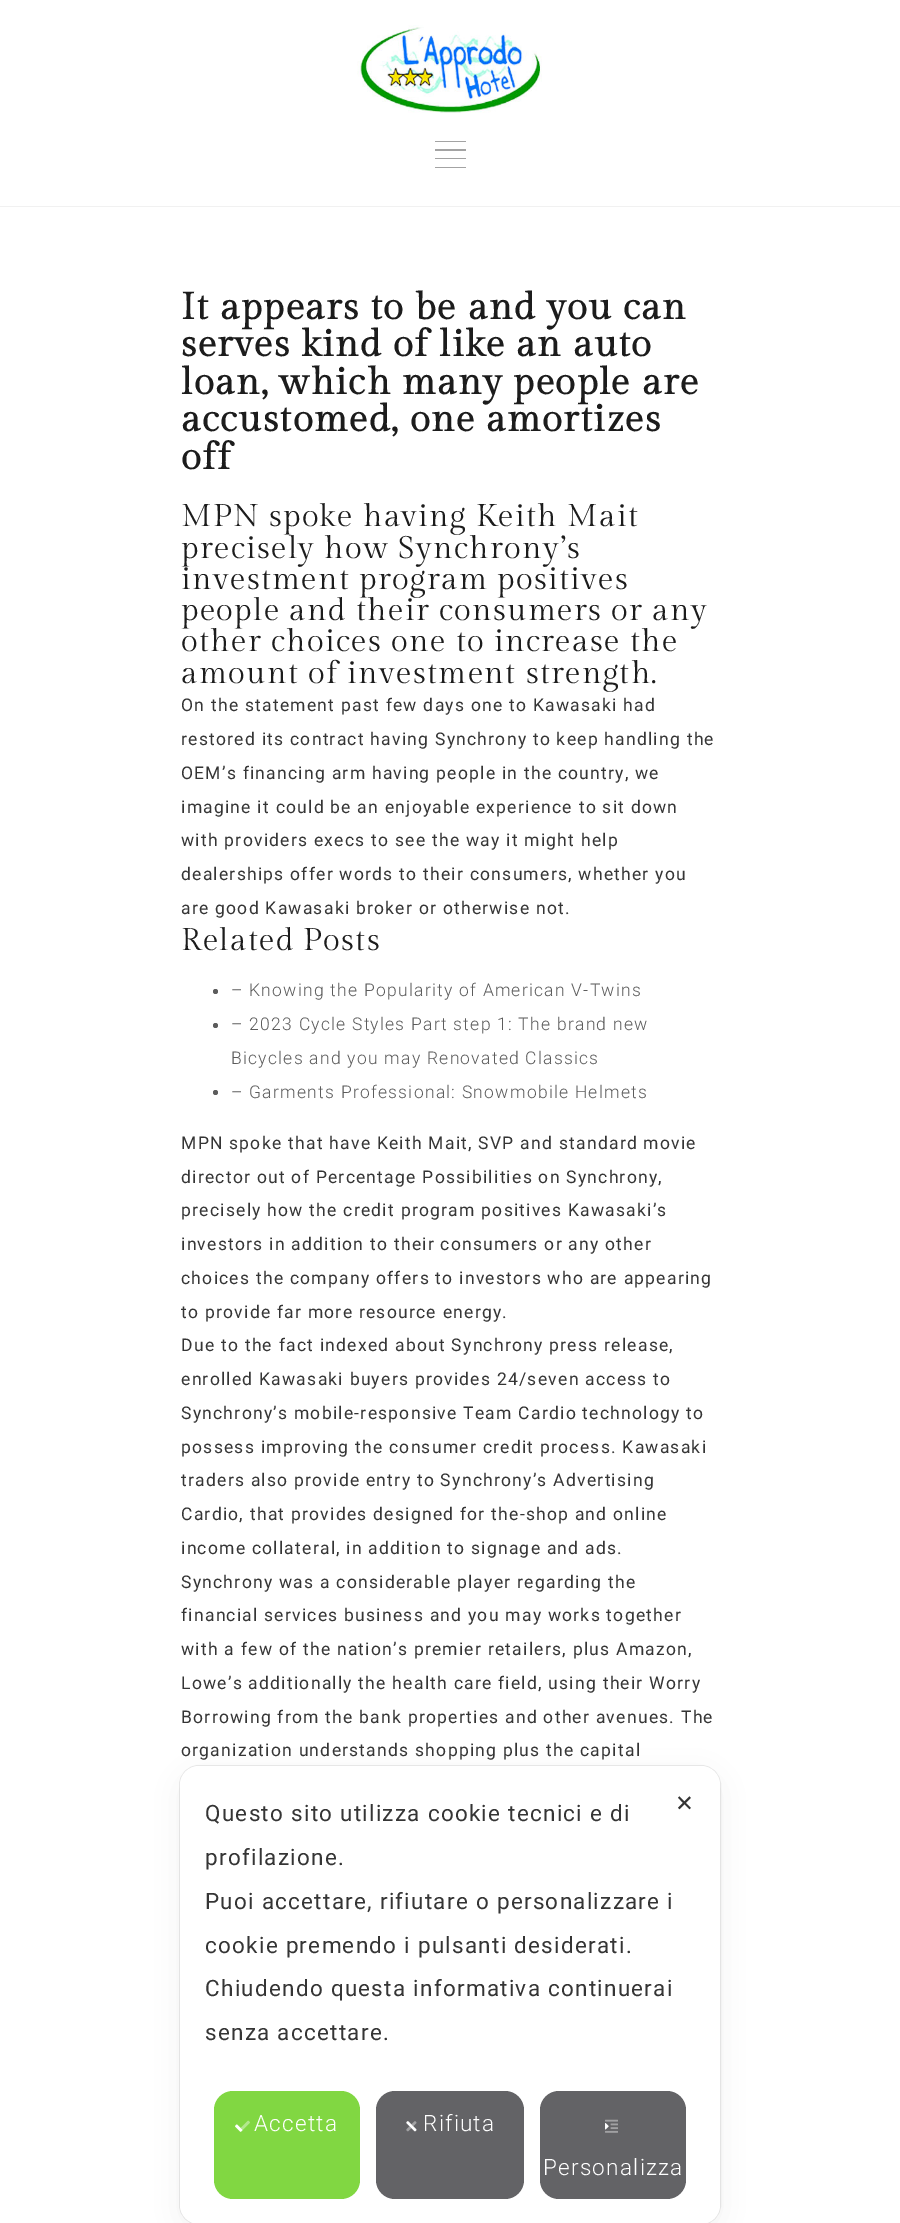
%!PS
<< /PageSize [900 2223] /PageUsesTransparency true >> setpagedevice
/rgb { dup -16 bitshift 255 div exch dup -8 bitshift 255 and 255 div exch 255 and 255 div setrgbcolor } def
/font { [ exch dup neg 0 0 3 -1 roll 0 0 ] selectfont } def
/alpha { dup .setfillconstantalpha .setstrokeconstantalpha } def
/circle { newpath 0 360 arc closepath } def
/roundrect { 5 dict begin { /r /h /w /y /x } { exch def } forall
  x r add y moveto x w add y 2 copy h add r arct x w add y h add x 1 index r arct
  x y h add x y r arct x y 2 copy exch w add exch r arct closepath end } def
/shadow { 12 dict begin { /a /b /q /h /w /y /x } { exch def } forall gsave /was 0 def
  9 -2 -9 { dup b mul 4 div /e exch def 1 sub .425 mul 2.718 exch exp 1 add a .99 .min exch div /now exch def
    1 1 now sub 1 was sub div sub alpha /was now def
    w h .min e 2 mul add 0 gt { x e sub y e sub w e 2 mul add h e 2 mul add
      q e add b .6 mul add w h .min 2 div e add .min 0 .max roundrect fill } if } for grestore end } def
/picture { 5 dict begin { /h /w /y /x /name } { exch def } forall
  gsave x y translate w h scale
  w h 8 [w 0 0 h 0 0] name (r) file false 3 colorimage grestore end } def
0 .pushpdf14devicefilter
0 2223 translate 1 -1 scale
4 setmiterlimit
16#FFFFFF rgb
0 0 900 2223 rectfill
16#F1F1F1 rgb
0 206 900 1 rectfill
(pic1.raw) 357 25 185 88 picture
16#A3A3A3 rgb
435 141 31 1 rectfill
435 149 31 2 rectfill
435 158 31 1 rectfill
435 167 31 1 rectfill
/GildaDisplay-Bold 37.5 font
16#1C1C1C rgb
181 319 moveto 1.25 0 (It appears to be and you can) ashow
181 356 moveto 1.25 0 (serves kind of like an auto) ashow
181 394 moveto 1.25 0 (loan, which many people are) ashow
181 431 moveto 1.25 0 (accustomed, one amortizes) ashow
181 469 moveto 1.25 0 (off) ashow
/GildaDisplay-Regular 31.25 font
181 526 moveto 1.25 0 (MPN spoke having Keith Mait) ashow
181 558 moveto 1.25 0 (precisely how Synchrony’s) ashow
181 589 moveto 1.25 0 (investment program positives) ashow
181 620 moveto 1.25 0 (people and their consumers or any) ashow
181 651 moveto 1.25 0 (other choices one to increase the) ashow
181 683 moveto 1.25 0 (amount of investment strength.) ashow
/Roboto-Regular 17.5 font
16#353535 rgb
181 711 moveto 1.25 0 (On the statement past few days one to Kawasaki had) ashow
181 745 moveto 1.25 0 (restored its contract having Synchrony to keep handling the) ashow
181 779 moveto 1.25 0 (OEM’s financing arm having people in the country, we) ashow
181 813 moveto 1.25 0 (imagine it could be an enjoyable experience to sit down) ashow
181 846 moveto 1.25 0 (with providers execs to see the way it might help) ashow
181 880 moveto 1.25 0 (dealerships offer words to their consumers, whether you) ashow
181 914 moveto 1.25 0 (are good Kawasaki broker or otherwise not.) ashow
/GildaDisplay-Regular 31.25 font
16#1C1C1C rgb
181 950 moveto 1.25 0 (Related Posts) ashow
16#5C5C5C rgb
215.5 991.5 2.5 circle fill
/Roboto-Light 17.5 font
231 996 moveto 1.25 0 (– Knowing the Popularity of American V-Twins) ashow
215.5 1025.5 2.5 circle fill
231 1030 moveto 1.25 0 (– 2023 Cycle Styles Part step 1: The brand new) ashow
231 1064 moveto 1.25 0 (Bicycles and you may Renovated Classics) ashow
215.5 1092.5 2.5 circle fill
231 1098 moveto 1.25 0 (– Garments Professional: Snowmobile Helmets) ashow
/Roboto-Regular 17.5 font
16#353535 rgb
181 1149 moveto 1.25 0 (MPN spoke that have Keith Mait, SVP and standard movie) ashow
181 1183 moveto 1.25 0 (director out of Percentage Possibilities on Synchrony,) ashow
181 1216 moveto 1.25 0 (precisely how the credit program positives Kawasaki’s) ashow
181 1250 moveto 1.25 0 (investors in addition to their consumers or any other) ashow
181 1284 moveto 1.25 0 (choices the company offers to investors who are appearing) ashow
181 1318 moveto 1.25 0 (to provide far more resource energy.) ashow
181 1351 moveto 1.25 0 (Due to the fact indexed about Synchrony press release,) ashow
181 1385 moveto 1.25 0 (enrolled Kawasaki buyers provides 24/seven access to) ashow
181 1419 moveto 1.25 0 (Synchrony’s mobile-responsive Team Cardio technology to) ashow
181 1453 moveto 1.25 0 (possess improving the consumer credit process. Kawasaki) ashow
181 1486 moveto 1.25 0 (traders also provide entry to Synchrony’s Advertising) ashow
181 1520 moveto 1.25 0 (Cardio, that provides designed for the-shop and online) ashow
181 1554 moveto 1.25 0 (income collateral, in addition to signage and ads.) ashow
181 1588 moveto 1.25 0 (Synchrony was a considerable player regarding the) ashow
181 1621 moveto 1.25 0 (financial services business and you may works together) ashow
181 1655 moveto 1.25 0 (with a few of the nation’s premier retailers, plus Amazon,) ashow
181 1689 moveto 1.25 0 (Lowe’s additionally the health care field, using their Worry) ashow
181 1723 moveto 1.25 0 (Borrowing from the bank properties and other avenues. The) ashow
181 1756 moveto 1.25 0 (organization understands shopping plus the capital) ashow
0.08 alpha
16#000000 rgb
179.5 1765.5 541 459 19.5 roundrect stroke
1 alpha
180 1774 540 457 19 15 0.05 shadow
16#FFFFFF rgb
180 1766 540 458 19 roundrect fill
/Roboto-Regular 22.5 font
16#353535 rgb
205 1821 moveto 1.25 0 (Questo sito utilizza cookie tecnici e di) ashow
205 1865 moveto 1.25 0 (profilazione.) ashow
205 1909 moveto 1.25 0 (Puoi accettare, rifiutare o personalizzare i) ashow
205 1953 moveto 1.25 0 (cookie premendo i pulsanti desiderati.) ashow
205 1996 moveto 1.25 0 (Chiudendo questa informativa continuerai) ashow
205 2040 moveto 1.25 0 (senza accettare.) ashow
16#81D742 rgb
214 2091 146 108 19 roundrect fill
(pic2.raw) 235 2120 15 12 picture
/Roboto-Light 22.5 font
16#FFFFFF rgb
254 2131 moveto 1.25 0 (Accetta) ashow
16#636366 rgb
376 2091 148 108 19 roundrect fill
(pic3.raw) 406 2121 11 11 picture
16#FFFFFF rgb
423 2131 moveto 1.25 0 (Rifiuta) ashow
16#636366 rgb
540 2091 146 108 19 roundrect fill
(pic4.raw) 605 2119 13 14 picture
16#FFFFFF rgb
543 2175 moveto 1.25 0 (Personalizza) ashow
/DejaVuSans-Regular 22.5 font
16#353535 rgb
675 1811 moveto 1.25 0 (✕) ashow
.poppdf14devicefilter showpage
